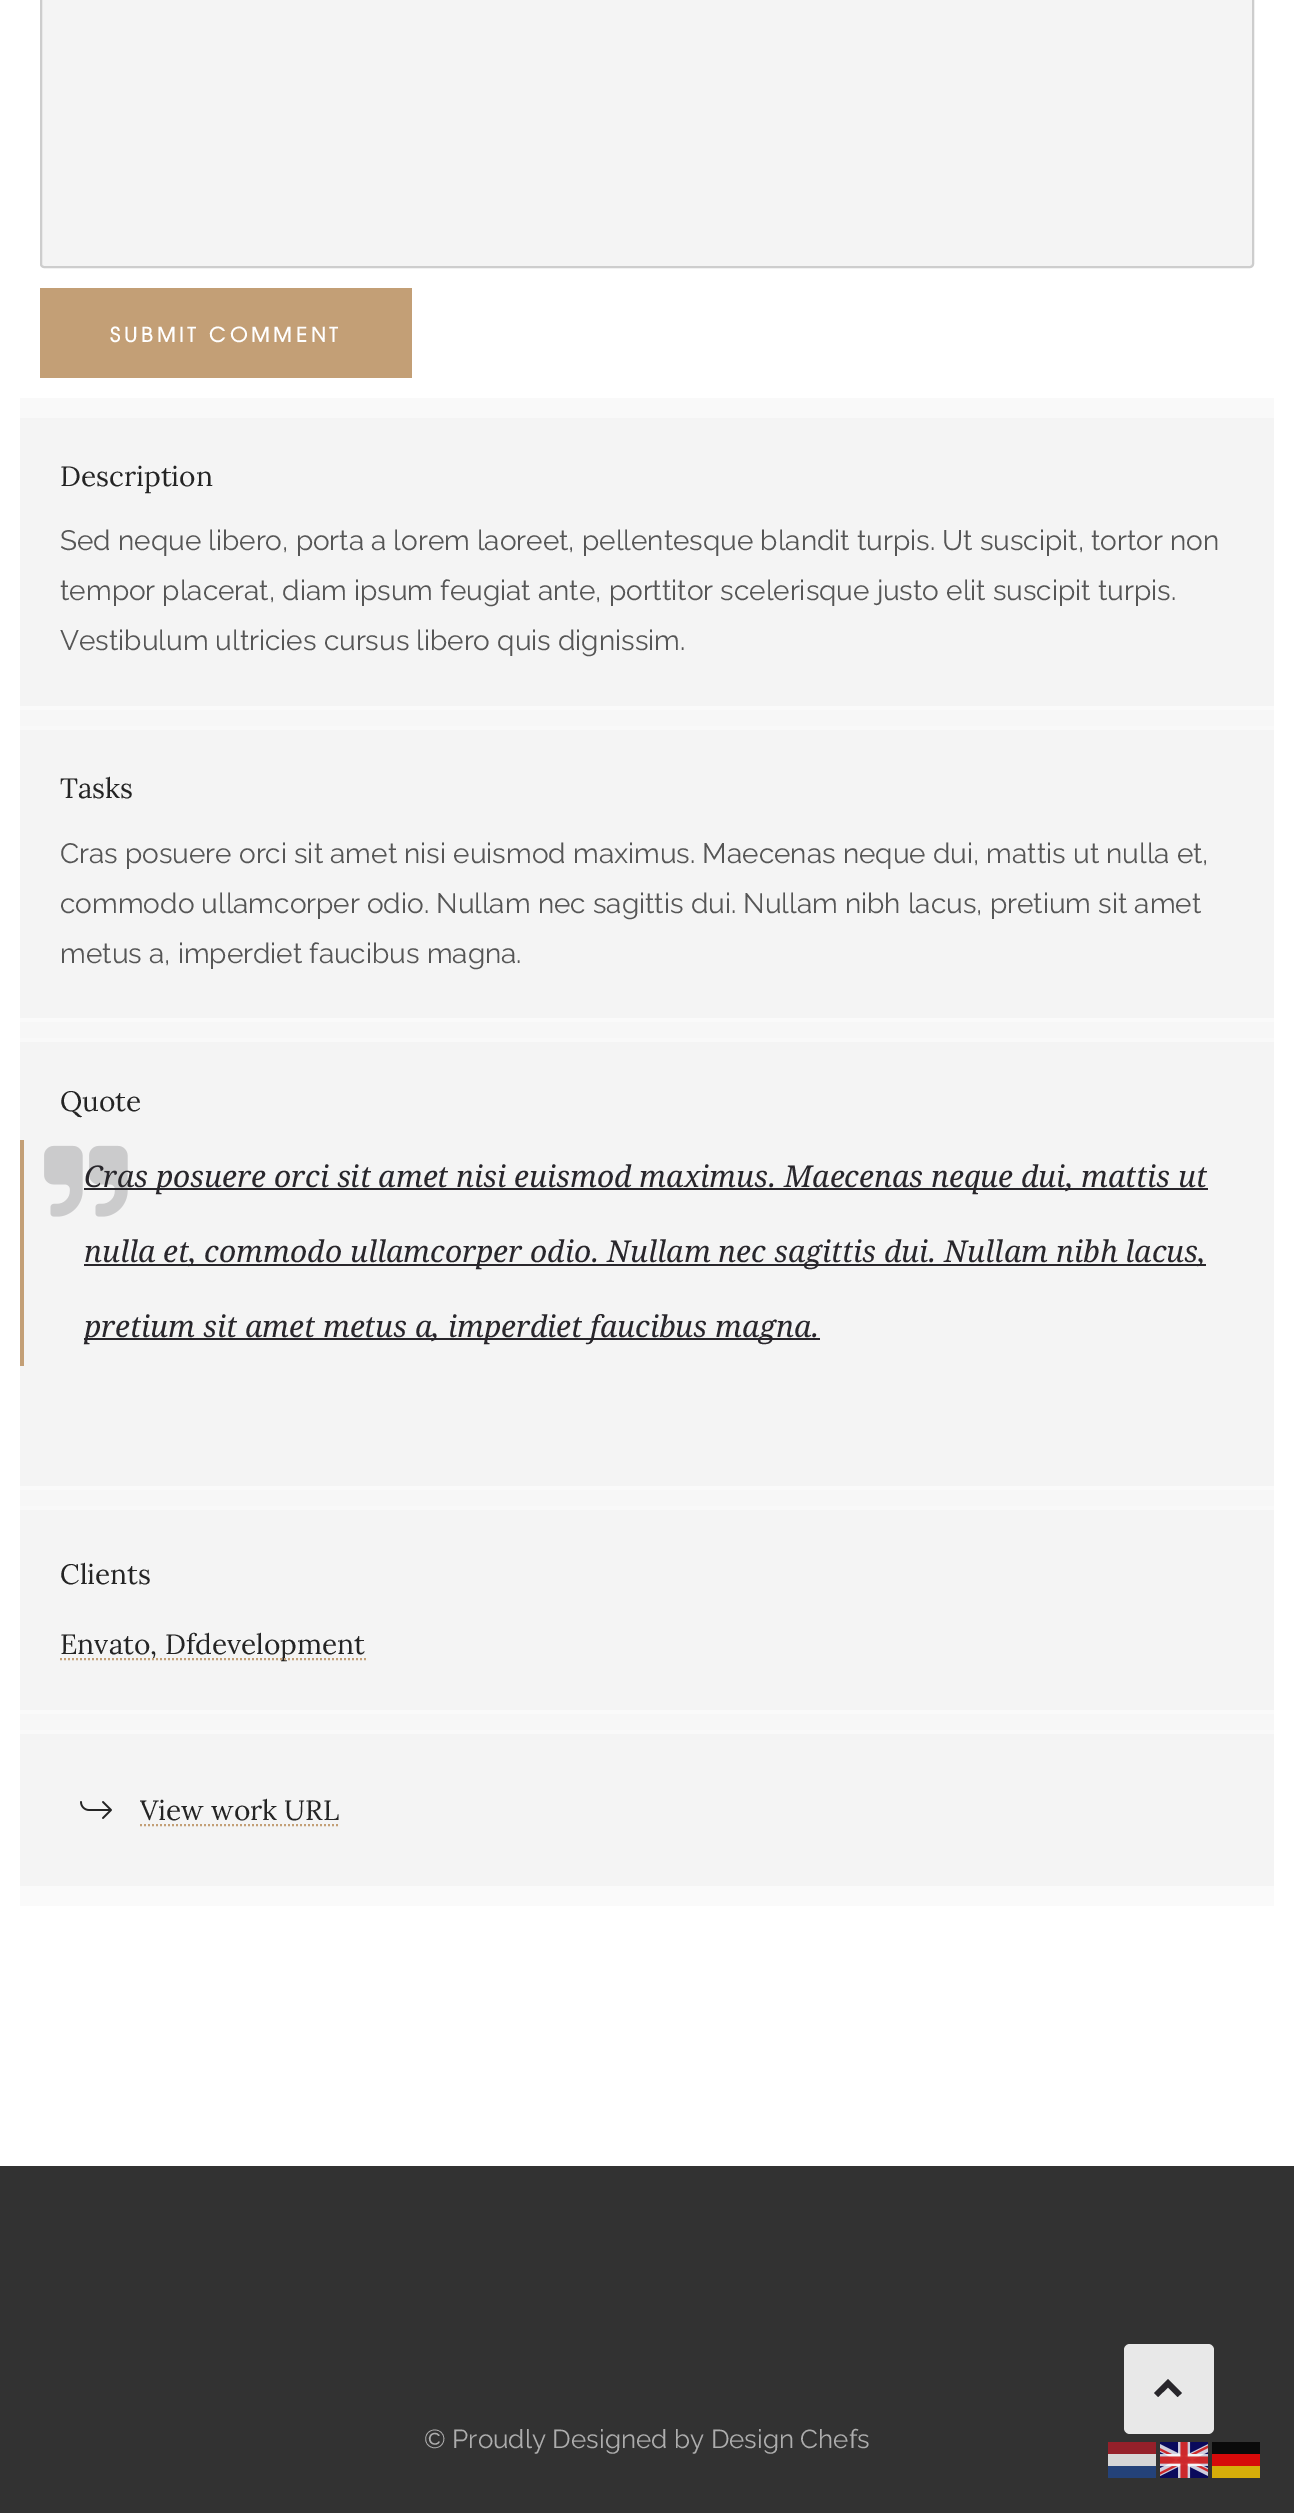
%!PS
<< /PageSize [1294 2513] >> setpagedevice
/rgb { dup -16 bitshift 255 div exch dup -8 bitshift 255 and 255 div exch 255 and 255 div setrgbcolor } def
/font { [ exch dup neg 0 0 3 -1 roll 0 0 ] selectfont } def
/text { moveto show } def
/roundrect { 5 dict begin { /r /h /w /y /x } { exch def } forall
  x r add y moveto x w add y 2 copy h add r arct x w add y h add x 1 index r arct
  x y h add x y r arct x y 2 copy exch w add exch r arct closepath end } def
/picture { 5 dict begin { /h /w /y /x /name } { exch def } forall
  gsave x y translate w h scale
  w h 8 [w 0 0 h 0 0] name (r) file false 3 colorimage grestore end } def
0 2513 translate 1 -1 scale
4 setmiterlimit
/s1 { /Lora-Regular 28 font 16#242424 rgb } def
/s2 { /Raleway-Regular 28 font 16#565656 rgb } def
/s3 { /DroidSerif-Italic 30 font 16#28262B rgb } def
/s4 { /Raleway-Regular 26 font 16#ADADAD rgb } def
16#FFFFFF rgb
0 0 1294 2513 rectfill
16#F9F9F9 rgb
20 1730 1254 4 rectfill
20 1506 1254 4 rectfill
20 1038 1254 4 rectfill
20 726 1254 4 rectfill
16#F4F4F4 rgb
41 -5 1212 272 3 roundrect gsave fill grestore
16#CDCDCD rgb
2 setlinewidth
stroke
16#C39F76 rgb
40 288 372 90 rectfill
/TeXGyreAdventor-Bold 20 font
16#FFFFFF rgb
110 342 moveto 4 0 (SUBMIT COMMENT) ashow
16#F4F4F4 rgb
20 418 1254 288 rectfill
16#F9F9F9 rgb
20 398 1254 20 rectfill
s1
(Description) 60 486 text
s2
(Sed neque libero, porta a lorem laoreet, pellentesque blandit turpis. Ut suscipit, tortor non) 60 550 text
(tempor placerat, diam ipsum feugiat ante, porttitor scelerisque justo elit suscipit turpis.) 60 600 text
(Vestibulum ultricies cursus libero quis dignissim.) 60 650 text
16#FAFAFA rgb
20 706 1254 4 rectfill
16#F7F7F7 rgb
20 710 1254 16 rectfill
16#F4F4F4 rgb
20 730 1254 288 rectfill
s1
(Tasks) 60 798 text
s2
(Cras posuere orci sit amet nisi euismod maximus. Maecenas neque dui, mattis ut nulla et,) 60 863 text
(commodo ullamcorper odio. Nullam nec sagittis dui. Nullam nibh lacus, pretium sit amet) 60 913 text
(metus a, imperdiet faucibus magna.) 60 963 text
16#FAFAFA rgb
20 1018 1254 4 rectfill
16#F7F7F7 rgb
20 1022 1254 16 rectfill
16#F4F4F4 rgb
20 1042 1254 444 rectfill
s1
(Quote) 60 1111 text
16#C39F76 rgb
20 1140 4 226 rectfill
16#28262B rgb
84 1188 1124 2 rectfill
s3
(Cras posuere orci sit amet nisi euismod maximus. Maecenas neque dui, mattis ut) 84 1187 text
(pic1.raw) 44 1145 84 72 picture
84 1264 1122 2 rectfill
(nulla et, commodo ullamcorper odio. Nullam nec sagittis dui. Nullam nibh lacus,) 84 1262 text
84 1338 736 2 rectfill
(pretium sit amet metus a, imperdiet faucibus magna.) 84 1337 text
16#FAFAFA rgb
20 1486 1254 4 rectfill
16#F7F7F7 rgb
20 1490 1254 16 rectfill
16#F4F4F4 rgb
20 1510 1254 200 rectfill
s1
(Clients) 60 1584 text
(Envato, Dfdevelopment) 60 1654 text
16#C39F76 rgb
[2 2] 0 setdash
60 1659 moveto 366 1659 lineto stroke
16#FAFAFA rgb
20 1710 1254 4 rectfill
16#F7F7F7 rgb
20 1714 1254 16 rectfill
16#F4F4F4 rgb
20 1734 1254 152 rectfill
(pic2.raw) 80 1801 32 18 picture
s1
(View work URL) 140 1820 text
16#C39F76 rgb
140 1825 moveto 340 1825 lineto stroke
16#FAFAFA rgb
20 1886 1254 20 rectfill
16#323232 rgb
0 2166 1294 347 rectfill
16#E8E8E8 rgb
1124 2344 90 90 6 roundrect fill
16#28262B rgb
1154 2393 moveto 1168 2379 lineto 1182 2393 lineto 1177.5 2397 lineto 1168 2387.5 lineto 1158 2397 lineto closepath fill
s4
(© Proudly Designed by Design Chefs) 424 2448 text
16#95202A rgb
1108 2442 48 12 rectfill
(pic3.raw) 1160 2442 48 36 picture
16#0A0A0A rgb
1212 2442 48 12 rectfill
16#D6D6D6 rgb
1108 2454 48 12 rectfill
16#D60A0A rgb
1212 2454 48 12 rectfill
16#244279 rgb
1108 2466 48 12 rectfill
16#D6AD0A rgb
1212 2466 48 12 rectfill
showpage
